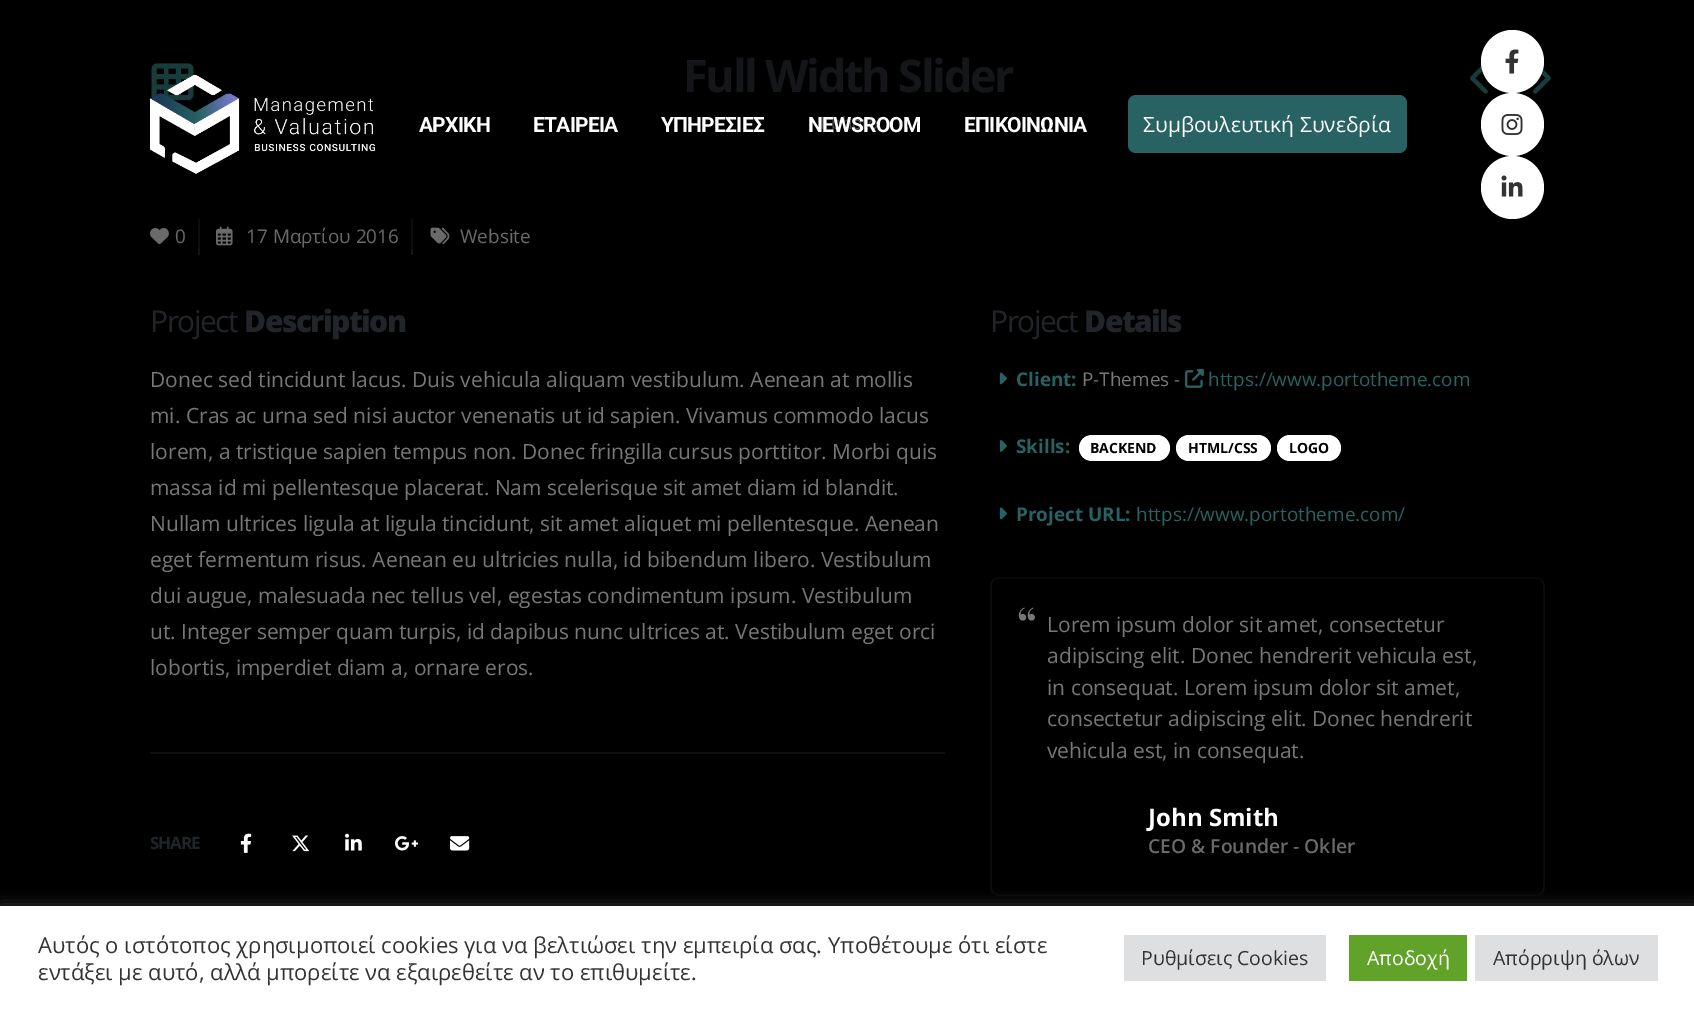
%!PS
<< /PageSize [1694 1009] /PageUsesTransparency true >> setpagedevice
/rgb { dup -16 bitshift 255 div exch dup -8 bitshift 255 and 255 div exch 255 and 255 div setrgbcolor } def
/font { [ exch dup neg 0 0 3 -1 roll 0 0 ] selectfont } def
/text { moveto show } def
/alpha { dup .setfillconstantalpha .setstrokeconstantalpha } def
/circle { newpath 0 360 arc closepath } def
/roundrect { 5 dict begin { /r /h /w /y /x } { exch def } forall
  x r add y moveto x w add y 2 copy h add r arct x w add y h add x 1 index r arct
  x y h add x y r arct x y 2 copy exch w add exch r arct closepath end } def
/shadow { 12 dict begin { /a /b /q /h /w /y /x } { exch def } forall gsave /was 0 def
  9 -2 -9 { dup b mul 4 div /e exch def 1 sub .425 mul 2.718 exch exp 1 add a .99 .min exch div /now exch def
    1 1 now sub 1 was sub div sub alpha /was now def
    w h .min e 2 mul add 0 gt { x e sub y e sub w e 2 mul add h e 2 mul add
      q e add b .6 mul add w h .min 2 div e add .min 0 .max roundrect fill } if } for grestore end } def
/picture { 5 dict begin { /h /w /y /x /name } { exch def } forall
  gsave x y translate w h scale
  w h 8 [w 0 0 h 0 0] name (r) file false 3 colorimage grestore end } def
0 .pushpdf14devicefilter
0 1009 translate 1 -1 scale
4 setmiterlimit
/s1 { /OpenSans-Regular 17 font 16#474747 rgb } def
/s2 { /OpenSans-Regular 18.9 font 16#6A6A6A rgb } def
/s3 { /OpenSans-Regular 21 font 16#777777 rgb } def
/s4 { /OpenSans-Bold 18.9 font 16#286262 rgb } def
/s5 { /OpenSans-Regular 18.9 font 16#777777 rgb } def
/s6 { /OpenSans-Regular 18.9 font 16#286262 rgb } def
/s7 { /OpenSans-Bold 14 font 16#000000 rgb } def
/s8 { /PlayfairDisplay-Regular 52 font 16#777777 rgb } def
/s9 { /OpenSans-Bold 24 font 16#FFFFFF rgb } def
/s10 { /OpenSans-SemiBold 19.25 font 16#6A6A6A rgb } def
/s11 { /OpenSans-Regular 21 font 16#FFFFFF rgb } def
/s12 { /OpenSans-Regular 22 font 16#333333 rgb } def
/s13 { /OpenSans-Regular 19.5 font 16#333333 rgb } def
/s14 { /OpenSans-Regular 19.5 font 16#FFFFFF rgb } def
16#000000 rgb
0 0 1694 1009 rectfill
(pic1.raw) 151 63 43 38 picture
/OpenSans-Bold 45 font
16#141619 rgb
683 92 moveto -2.25 0 (Full Width Slider) ashow
s1
(1 photo) 817 129 text
(pic2.raw) 1470 65 18 29 picture
(pic3.raw) 1533 69 18 25 picture
16#151515 rgb
198 249 2 6 rectfill
16#0D0D0D rgb
198 219 2 30 rectfill
(pic4.raw) 150 228 19 17 picture
s2
(0) 175 243 text
16#151515 rgb
411 249 2 6 rectfill
16#0D0D0D rgb
411 219 2 30 rectfill
(pic5.raw) 216 226 17 20 picture
s2
(17 Μαρτίου 2016) 246 243 text
(pic6.raw) 430 227 20 18 picture
(Website) 460 243 text
/OpenSans-Regular 30 font
16#212529 rgb
150 332 moveto -1.5 0 (Project) ashow
/OpenSans-ExtraBold 30 font
244 332 moveto -1.5 0 (Description) ashow
s3
(Donec sed tincidunt lacus. Duis vehicula aliquam vestibulum. Aenean at mollis) 150 387 text
(mi. Cras ac urna sed nisi auctor venenatis ut id sapien. Vivamus commodo lacus) 150 423 text
(lorem, a tristique sapien tempus non. Donec fringilla cursus porttitor. Morbi quis) 150 459 text
(massa id mi pellentesque placerat. Nam scelerisque sit amet diam id blandit.) 150 495 text
(Nullam ultrices ligula at ligula tincidunt, sit amet aliquet mi pellentesque. Aenean) 150 531 text
(eget fermentum risus. Aenean eu ultricies nulla, id bibendum libero. Vestibulum) 150 567 text
(dui augue, malesuada nec tellus vel, egestas condimentum ipsum. Vestibulum) 150 603 text
(ut. Integer semper quam turpis, id dapibus nunc ultrices at. Vestibulum eget orci) 150 639 text
(lobortis, imperdiet diam a, ornare eros.) 150 675 text
16#0F0F0F rgb
150 752 795 2 rectfill
/OpenSans-Bold 17 font
16#212529 rgb
150 849 moveto -1 0 (SHARE) ashow
(pic7.raw) 240 833 12 20 picture
(pic8.raw) 292 835 18 17 picture
(pic9.raw) 345 833 17 18 picture
(pic10.raw) 395 836 23 15 picture
(pic11.raw) 450 836 20 15 picture
/OpenSans-Regular 30 font
990 332 moveto -1.5 0 (Project) ashow
/OpenSans-ExtraBold 30 font
1084 332 moveto -1.5 0 (Details) ashow
(pic12.raw) 999 372 8 13 picture
s4
(Client:) 1016 386 text
s5
(P-Themes -) 1082 386 text
(pic13.raw) 1185 368 19 20 picture
s6
(https://www.portotheme.com) 1208 386 text
(pic14.raw) 999 440 8 12 picture
s4
(Skills:) 1016 453 text
16#FFFFFF rgb
1079 435 91 26 13 roundrect fill
s7
(BACKEND) 1090 453 text
16#FFFFFF rgb
1176 435 95 26 13 roundrect fill
s7
(HTML/CSS) 1188 453 text
16#FFFFFF rgb
1277 435 64 26 13 roundrect fill
s7
(LOGO) 1289 453 text
(pic12.raw) 999 507 8 13 picture
s4
(Project URL:) 1016 521 text
s6
(https://www.portotheme.com/) 1136 521 text
16#080808 rgb
1.5 setlinewidth
993 580.5 moveto 994.5 579 997 578 999 578 curveto 1536 578 lineto 1538 578 1540.5 579 1542 580.5 curveto stroke
16#0D0D0D rgb
1542 580.5 moveto 1543.5 582 1544 584.5 1544 586.5 curveto 1544 886.5 lineto 1544 888.5 1543.5 891 1542 892.5 curveto stroke
16#080808 rgb
1542 892.5 moveto 1540.5 894 1538 895 1536 895 curveto 999 895 lineto 997 895 994.5 894 993 892.5 curveto stroke
16#0D0D0D rgb
993 892.5 moveto 991.5 891 991 888.5 991 886.5 curveto 991 586.5 lineto 991 584.5 991.5 582 993 580.5 curveto stroke
s8
(“) 1016 645 text
s3
(Lorem ipsum dolor sit amet, consectetur) 1047 632 text
(adipiscing elit. Donec hendrerit vehicula est,) 1047 663 text
(in consequat. Lorem ipsum dolor sit amet,) 1047 695 text
(consectetur adipiscing elit. Donec hendrerit) 1047 726 text
(vehicula est, in consequat.) 1047 758 text
s9
(John Smith) 1148 826 text
s10
(CEO & Founder - Okler) 1148 853 text
(pic15.raw) 150 74 225 100 picture
/Roboto-Bold 21 font
16#FFFFFF rgb
419 132 moveto -0.75 0 (ΑΡΧΙΚΗ) ashow
533 132 moveto -0.75 0 (ΕΤΑΙΡΕΙΑ) ashow
661 132 moveto -0.75 0 (ΥΠΗΡΕΣΙΕΣ) ashow
808 132 moveto -0.75 0 (NEWSROOM) ashow
964 132 moveto -0.75 0 (ΕΠΙΚΟΙΝΩΝΙΑ) ashow
16#286262 rgb
1128 95 279 58 8 roundrect fill
s11
(Συμβουλευτική Συνεδρία) 1143 132 text
16#000000 rgb
1481 32 63 63 31.5 1 0.2 shadow
16#FFFFFF rgb
1512.5 61.5 31.5 circle fill
(pic16.raw) 1505 49 14 25 picture
1512.5 124.5 31.5 circle fill
(pic17.raw) 1501 114 22 21 picture
1512.5 187.5 31.5 circle fill
(pic18.raw) 1501 175 22 22 picture
16#ACABAB rgb
0 905 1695 103 0 7.5 0.3 shadow
16#FFFFFF rgb
0 906 1694 103 rectfill
s12
(Αυτός ο ιστότοπος χρησιμοποιεί cookies για να βελτιώσει την εμπειρία σας. Υποθέτουμε ότι είστε) 38 953 text
(εντάξει με αυτό, αλλά μπορείτε να εξαιρεθείτε αν το επιθυμείτε.) 38 980 text
16#DEDFE0 rgb
1124 935 202 46 rectfill
s13
(Ρυθμίσεις Cookies) 1141 965 text
16#61A229 rgb
1349 935 118 46 rectfill
s14
(Αποδοχή) 1367 965 text
16#DEDFE0 rgb
1475 935 183 46 rectfill
s13
(Απόρριψη όλων) 1493 965 text
.poppdf14devicefilter showpage
